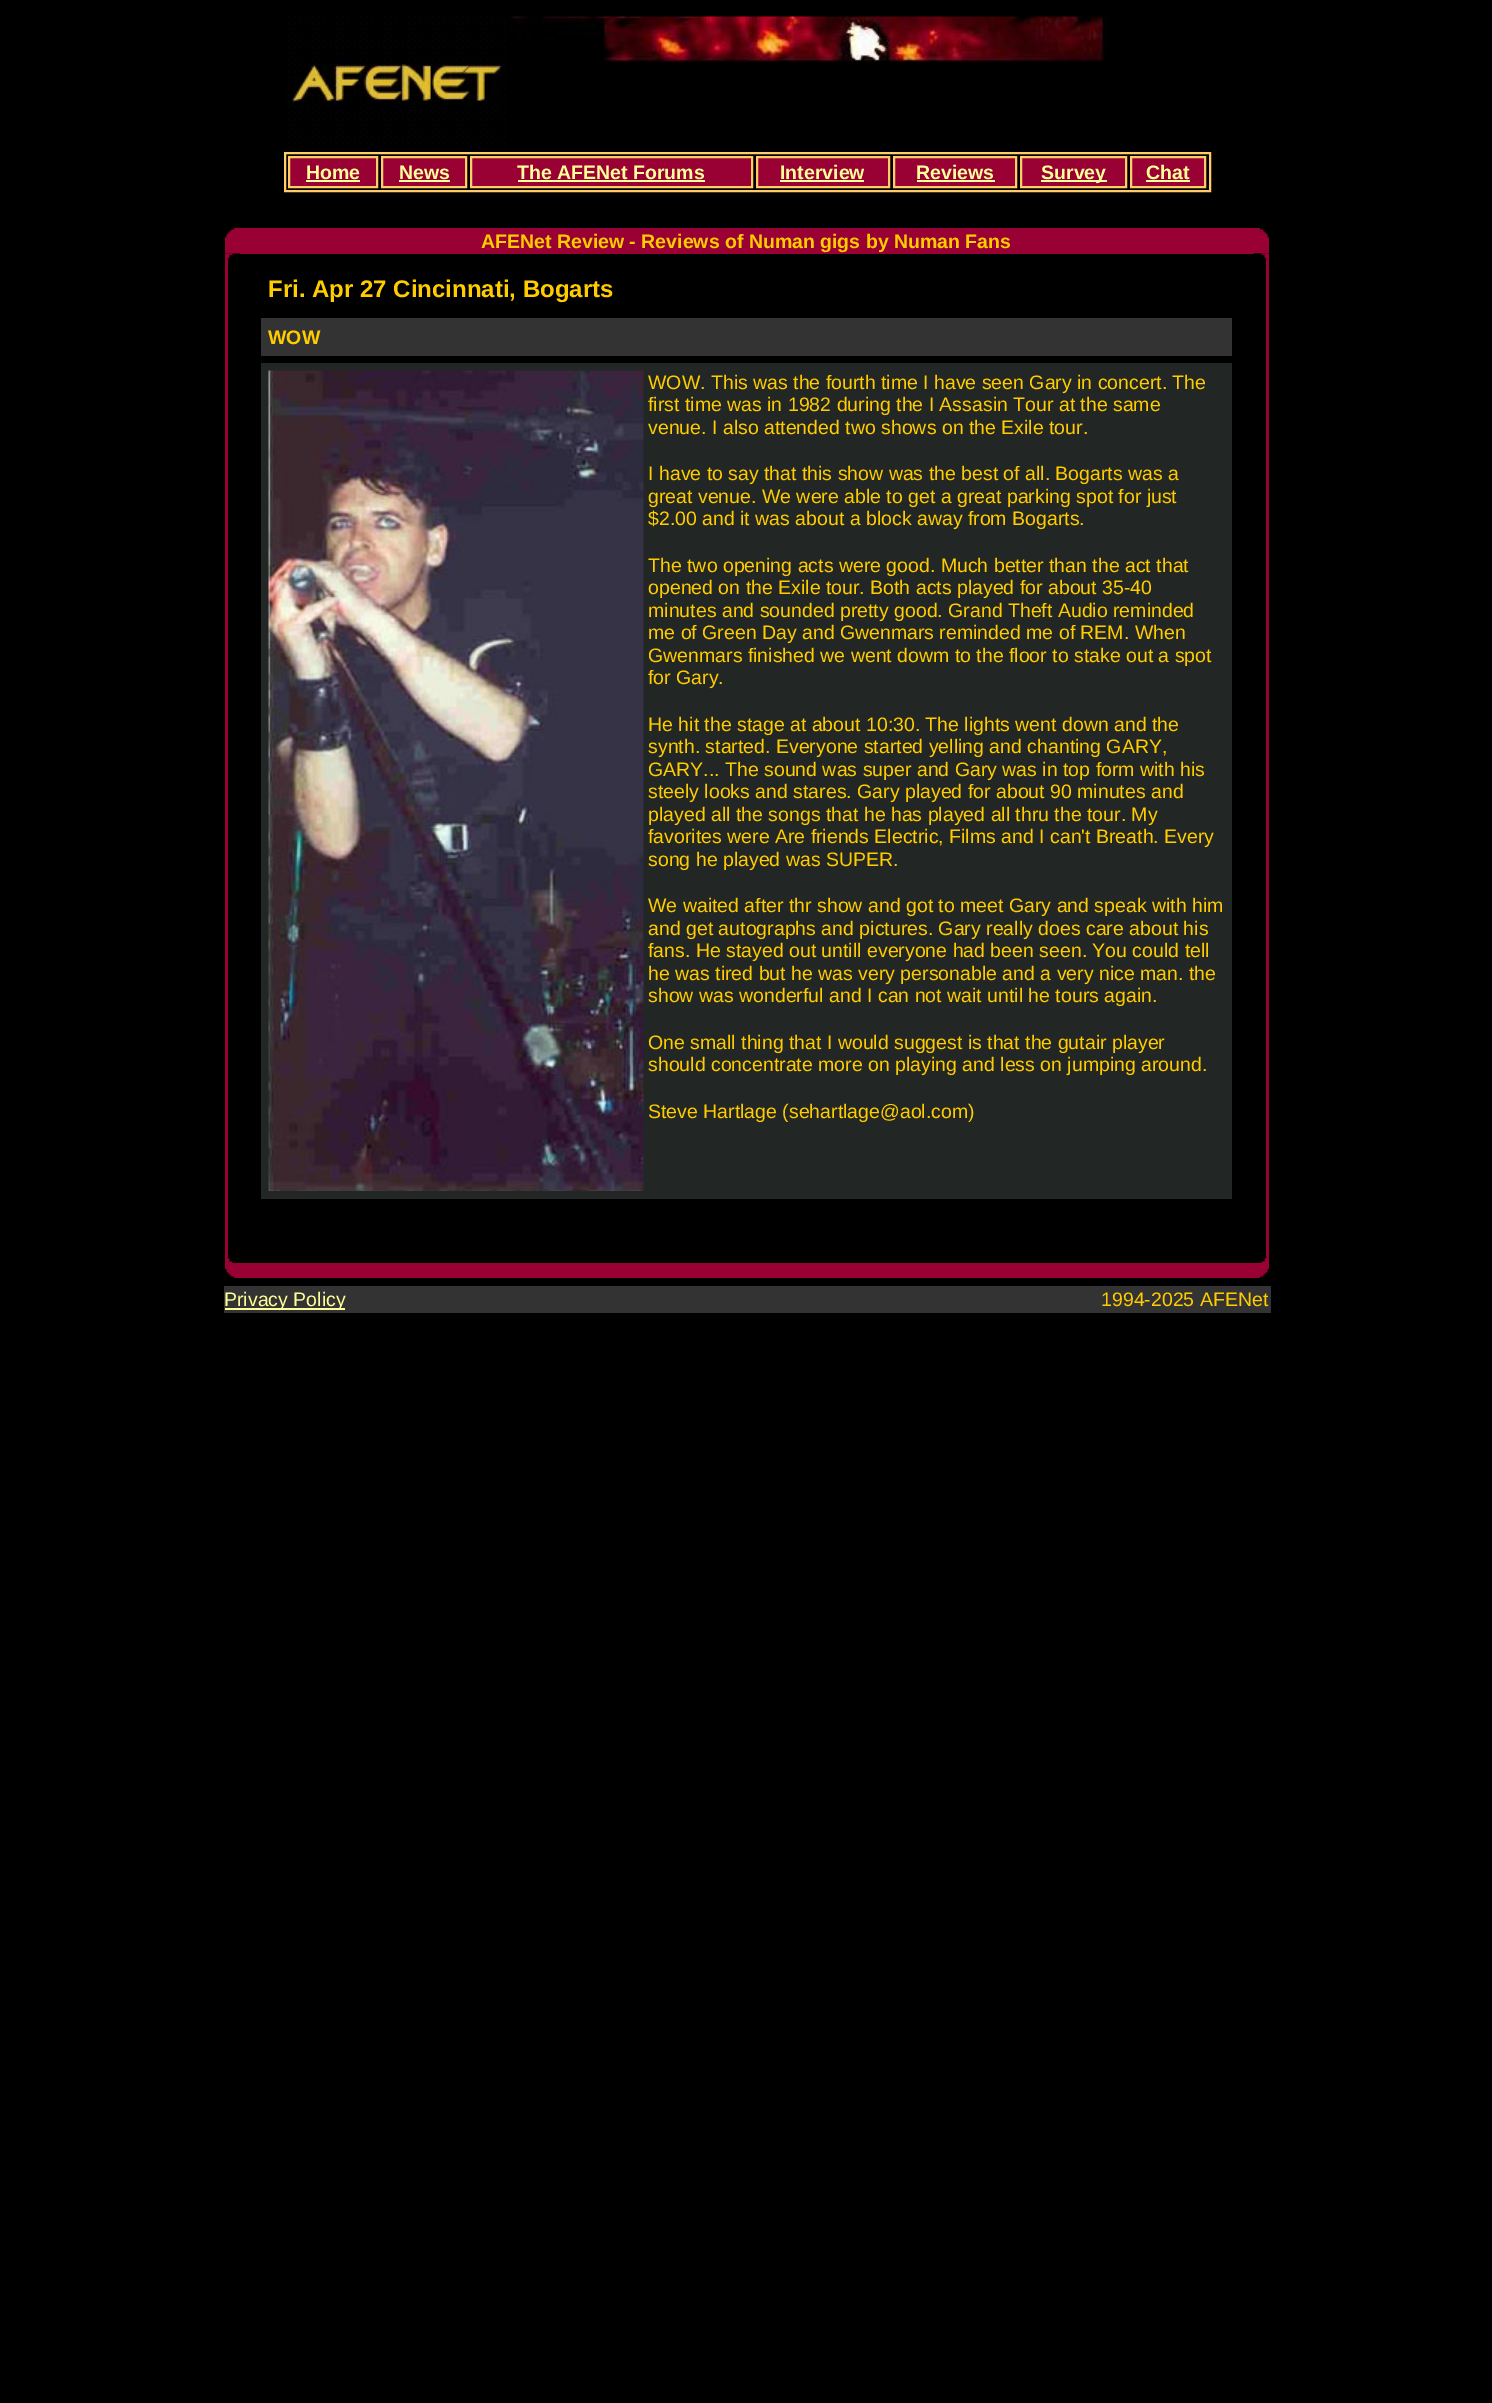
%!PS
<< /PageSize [1492 2403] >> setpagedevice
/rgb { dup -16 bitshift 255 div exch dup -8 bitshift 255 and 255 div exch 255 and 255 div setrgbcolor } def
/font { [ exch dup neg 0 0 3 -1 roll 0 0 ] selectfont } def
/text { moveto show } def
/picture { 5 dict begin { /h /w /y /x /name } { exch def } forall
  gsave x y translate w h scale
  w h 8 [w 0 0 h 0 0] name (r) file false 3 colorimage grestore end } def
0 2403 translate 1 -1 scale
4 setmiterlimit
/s1 { /LiberationSans-Bold 19.5 font 16#FFFF99 rgb } def
/s2 { /LiberationSans-Bold 19.5 font 16#FFCC00 rgb } def
/s3 { /LiberationSans-Bold 24 font 16#FFCC00 rgb } def
/s4 { /LiberationSans-Regular 19.5 font 16#FFCC00 rgb } def
/s5 { /LiberationSans-Regular 19.5 font 16#FFFF99 rgb } def
16#000000 rgb
0 0 1492 2403 rectfill
(pic1.raw) 285 17 223 133 picture
(pic2.raw) 509 16 599 46 picture
16#FFCC66 rgb
2 setlinewidth
285 153 925 38 rectstroke
16#990033 rgb
289 157 moveto 377 157 lineto 377 187 lineto 289 187 lineto closepath gsave fill grestore
16#FFCC66 rgb
stroke
s1
(Home) 306 179 text
306 180 54 2 rectfill
16#990033 rgb
382 157 moveto 466 157 lineto 466 187 lineto 382 187 lineto closepath gsave fill grestore
16#FFCC66 rgb
stroke
s1
(News) 399 179 text
399 180 51 2 rectfill
16#990033 rgb
471 157 moveto 752 157 lineto 752 187 lineto 471 187 lineto closepath gsave fill grestore
16#FFCC66 rgb
stroke
s1
(The AFENet Forums) 517 179 text
518 180 187 2 rectfill
16#990033 rgb
757 157 moveto 889 157 lineto 889 187 lineto 757 187 lineto closepath gsave fill grestore
16#FFCC66 rgb
stroke
s1
(Interview) 780 179 text
780 180 84 2 rectfill
16#990033 rgb
894 157 moveto 1016 157 lineto 1016 187 lineto 894 187 lineto closepath gsave fill grestore
16#FFCC66 rgb
stroke
s1
(Reviews) 916 179 text
917 180 78 2 rectfill
16#990033 rgb
1021 157 moveto 1126 157 lineto 1126 187 lineto 1021 187 lineto closepath gsave fill grestore
16#FFCC66 rgb
stroke
16#FFFF99 rgb
1041 180 66 2 rectfill
(Survey) 1041 179 text
16#990033 rgb
1131 157 moveto 1205 157 lineto 1205 187 lineto 1131 187 lineto closepath gsave fill grestore
16#FFCC66 rgb
stroke
s1
(Chat) 1146 179 text
1146 180 44 2 rectfill
(pic3.raw) 225 228 15 26 picture
16#990033 rgb
240 228 1014 26 rectfill
s2
(AFENet Review - Reviews of Numan gigs by Numan Fans) 481 248 text
(pic4.raw) 1254 228 15 26 picture
(pic5.raw) 225 253 8 8 picture
(pic6.raw) 1254 253 15 8 picture
16#990033 rgb
225 261 3 995 rectfill
s3
(Fri. Apr 27 Cincinnati, Bogarts) 268 297 text
16#333333 rgb
261 318 971 38 rectfill
s2
(WOW) 268 344 text
16#222624 rgb
261 363 971 836 rectfill
(pic7.raw) 268 370 376 821 picture
s4
(WOW. This was the fourth time I have seen Gary in concert. The) 648 389 text
(first time was in 1982 during the I Assasin Tour at the same) 648 411 text
(venue. I also attended two shows on the Exile tour.) 648 434 text
(I have to say that this show was the best of all. Bogarts was a) 648 480 text
(great venue. We were able to get a great parking spot for just) 648 503 text
($2.00 and it was about a block away from Bogarts.) 648 525 text
(The two opening acts were good. Much better than the act that) 648 572 text
(opened on the Exile tour. Both acts played for about 35-40) 648 594 text
(minutes and sounded pretty good. Grand Theft Audio reminded) 648 617 text
(me of Green Day and Gwenmars reminded me of REM. When) 648 639 text
(Gwenmars finished we went dowm to the floor to stake out a spot) 648 662 text
(for Gary.) 648 684 text
(He hit the stage at about 10:30. The lights went down and the) 648 731 text
(synth. started. Everyone started yelling and chanting GARY,) 648 753 text
(GARY... The sound was super and Gary was in top form with his) 648 776 text
(steely looks and stares. Gary played for about 90 minutes and) 648 798 text
(played all the songs that he has played all thru the tour. My) 648 821 text
(favorites were Are friends Electric, Films and I can't Breath. Every) 648 843 text
(song he played was SUPER.) 648 866 text
(We waited after thr show and got to meet Gary and speak with him) 648 912 text
(and get autographs and pictures. Gary really does care about his) 648 935 text
(fans. He stayed out untill everyone had been seen. You could tell) 648 957 text
(he was tired but he was very personable and a very nice man. the) 648 980 text
(show was wonderful and I can not wait until he tours again.) 648 1002 text
(One small thing that I would suggest is that the gutair player) 648 1049 text
(should concentrate more on playing and less on jumping around.) 648 1071 text
(Steve Hartlage \(sehartlage@aol.com\)) 648 1118 text
16#990033 rgb
1266 261 3 995 rectfill
(pic8.raw) 225 1255 8 8 picture
(pic9.raw) 1261 1255 8 8 picture
(pic10.raw) 225 1263 15 15 picture
240 1263 1014 15 rectfill
(pic11.raw) 1254 1263 15 15 picture
16#333333 rgb
224 1286 1047 27 rectfill
16#FFFF99 rgb
225 1308 120 2 rectfill
(Privacy Policy) 224 1306 text
s4
(1994-2025 AFENet) 1101 1306 text
showpage
